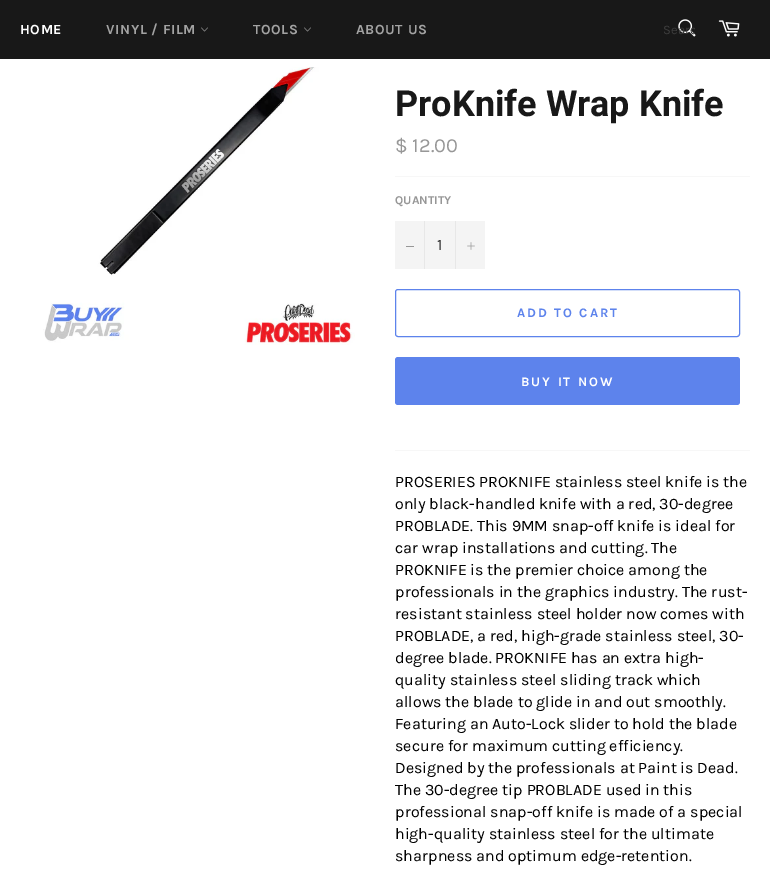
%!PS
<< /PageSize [770 880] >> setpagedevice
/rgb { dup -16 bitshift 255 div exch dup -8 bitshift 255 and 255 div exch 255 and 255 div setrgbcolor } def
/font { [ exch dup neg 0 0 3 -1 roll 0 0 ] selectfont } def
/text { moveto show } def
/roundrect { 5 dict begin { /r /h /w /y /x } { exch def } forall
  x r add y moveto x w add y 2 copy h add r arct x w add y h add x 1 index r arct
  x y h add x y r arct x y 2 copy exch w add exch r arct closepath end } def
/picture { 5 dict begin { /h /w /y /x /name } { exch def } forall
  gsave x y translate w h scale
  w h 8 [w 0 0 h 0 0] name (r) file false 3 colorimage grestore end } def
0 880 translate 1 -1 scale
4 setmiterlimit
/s1 { /Karla-Regular 13 font 16#3C3C3C rgb } def
/s2 { /Roboto-Bold 36 font 16#181818 rgb } def
/s3 { /Karla-Regular 20 font 16#979797 rgb } def
/s4 { /Karla-Bold 12 font 16#979797 rgb } def
/s5 { /Karla-Regular 16 font 16#333333 rgb } def
/s6 { /Karla-Regular 16 font 16#000000 rgb } def
16#FFFFFF rgb
0 0 770 880 rectfill
16#181818 rgb
0 0 770 59 rectfill
/Karla-Bold 14 font
16#FFFFFF rgb
20 34 moveto 0.6 0 (HOME) ashow
16#A3A3A3 rgb
106 34 moveto 0.6 0 (VINYL / FILM) ashow
(pic1.raw) 201 27 7 5 picture
253 34 moveto 0.6 0 (TOOLS) ashow
(pic1.raw) 304 27 7 5 picture
356 34 moveto 0.6 0 (ABOUT US) ashow
(pic2.raw) 678 19 18 18 picture
gsave
663 22 32 15 rectclip
s1
(Searc) 663 34 text
grestore
(pic3.raw) 718 20 22 17 picture
(pic4.raw) 43 67 312 278 picture
s2
(ProKnife Wrap Knife) 395 116 text
s3
($ 12.00) 395 152 text
16#F7F7F7 rgb
395 176 355 1 rectfill
s4
(QUANTITY) 395 204 text
16#F4F4F4 rgb
395 221 90 48 rectfill
16#E7E7E7 rgb
424 221 1 48 rectfill
16#979797 rgb
406 246 8 1 rectfill
s5
(1) 437 250 text
16#E7E7E7 rgb
455 221 1 48 rectfill
(pic5.raw) 467 242 8 8 picture
16#5D83EC rgb
395.5 289.5 344 47 2.5 roundrect stroke
/Karla-Bold 13 font
517 317 moveto 2 0 (ADD TO CART) ashow
395 357 345 48 3 roundrect fill
16#FFFFFF rgb
521 386 moveto 2 0 (BUY IT NOW) ashow
16#F7F7F7 rgb
395 450 355 1 rectfill
s6
(PROSERIES PROKNIFE stainless steel knife is the) 395 487 text
(only black-handled knife with a red, 30-degree) 395 509 text
(PROBLADE. This 9MM snap-off knife is ideal for) 395 531 text
(car wrap installations and cutting. The) 395 553 text
(PROKNIFE is the premier choice among the) 395 575 text
(professionals in the graphics industry. The rust-) 395 597 text
(resistant stainless steel holder now comes with) 395 619 text
(PROBLADE, a red, high-grade stainless steel, 30-) 395 641 text
(degree blade. PROKNIFE has an extra high-) 395 663 text
(quality stainless steel sliding track which) 395 685 text
(allows the blade to glide in and out smoothly.) 395 707 text
(Featuring an Auto-Lock slider to hold the blade) 395 729 text
(secure for maximum cutting efficiency.) 395 751 text
(Designed by the professionals at Paint is Dead.) 395 773 text
(The 30-degree tip PROBLADE used in this) 395 795 text
(professional snap-off knife is made of a special) 395 817 text
(high-quality stainless steel for the ultimate) 395 839 text
(sharpness and optimum edge-retention.) 395 861 text
showpage
